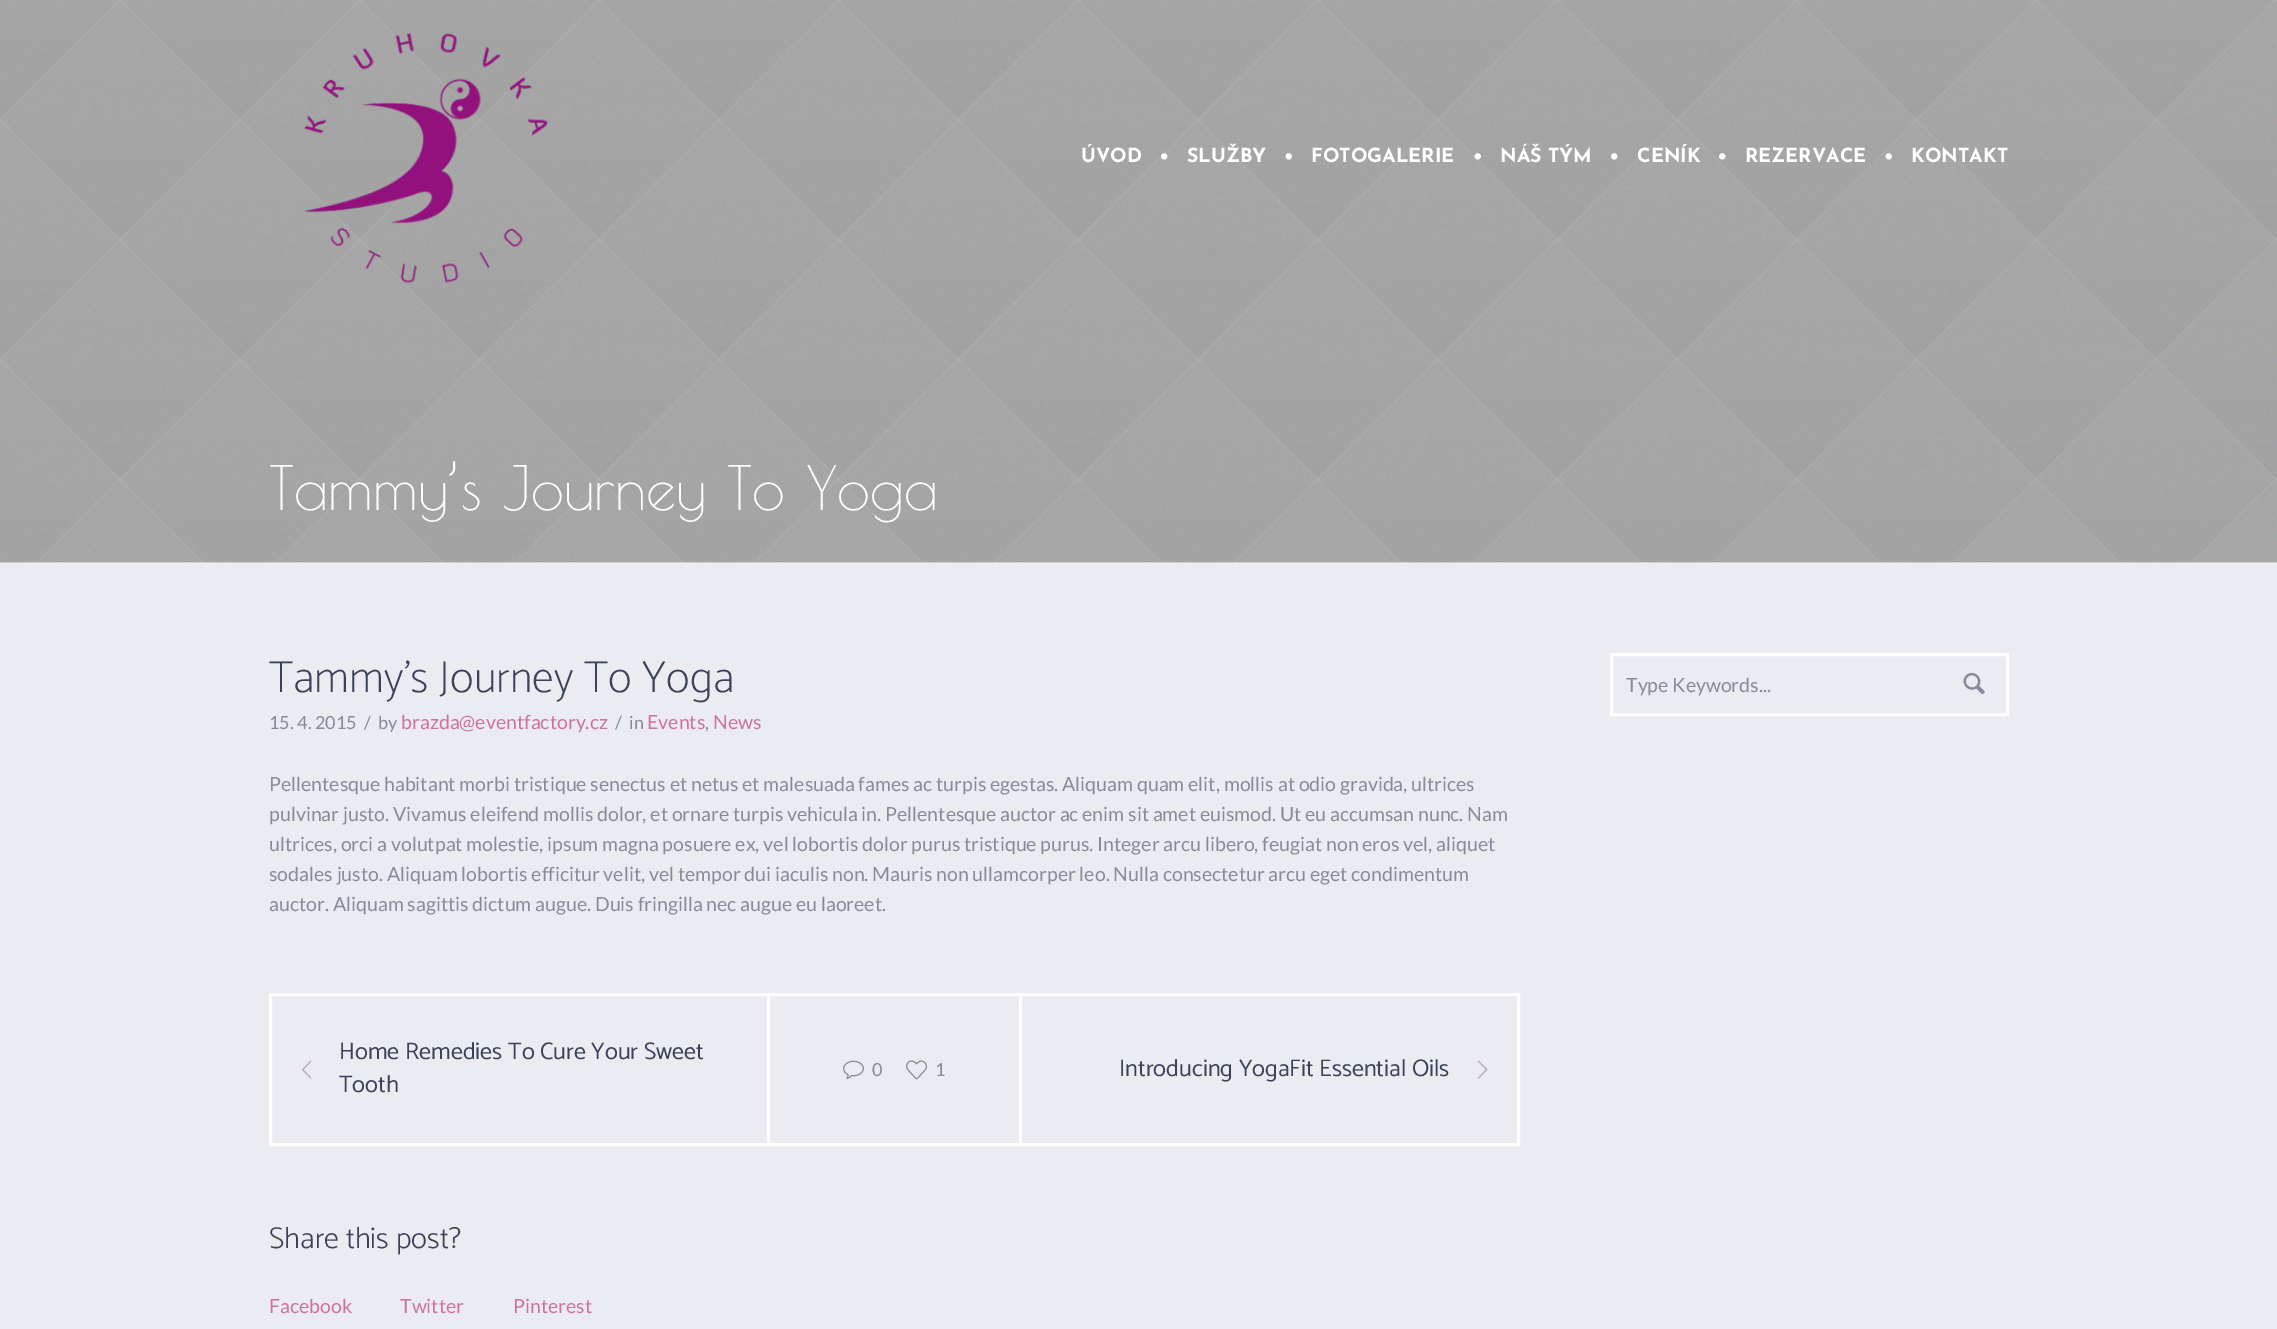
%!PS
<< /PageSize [2277 1329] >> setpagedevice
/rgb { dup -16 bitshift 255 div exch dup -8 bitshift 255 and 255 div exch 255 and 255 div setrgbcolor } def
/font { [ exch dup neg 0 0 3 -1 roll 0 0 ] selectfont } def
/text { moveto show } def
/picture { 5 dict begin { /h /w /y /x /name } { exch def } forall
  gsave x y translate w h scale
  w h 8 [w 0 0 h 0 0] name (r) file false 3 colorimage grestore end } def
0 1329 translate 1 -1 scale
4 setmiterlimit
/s1 { /JosefinSans-Bold 19.5 font 16#FFFFFF rgb } def
/s2 { /PoiretOne-Regular 60 font 16#FFFFFF rgb } def
/s3 { /Catamaran-Thin 45 font 16#3A4259 rgb } def
/s4 { /Lato-Regular 18 font 16#878A9A rgb } def
/s5 { /Lato-Regular 19.5 font 16#CD7399 rgb } def
/s6 { /Lato-Regular 19.5 font 16#878A9A rgb } def
/s7 { /Catamaran-Regular 24 font 16#3A4259 rgb } def
/s8 { /Catamaran-Light 30 font 16#3A4259 rgb } def
16#FFFFFF rgb
0 0 2277 1329 rectfill
(pic8.raw) 0 0 2277 563 picture
(pic1.raw) 304 33 244 250 picture
s1
(ÚVOD) 1081 162 text
(pic2.raw) 1161 153 7 7 picture
(SLUŽBY) 1187 162 text
(pic3.raw) 1285 153 7 7 picture
(FOTOGALERIE) 1311 162 text
(pic4.raw) 1474 153 7 7 picture
(NÁŠ TÝM) 1500 162 text
(pic5.raw) 1611 153 7 7 picture
(CENÍK) 1637 162 text
(pic6.raw) 1719 153 7 7 picture
(REZERVACE) 1745 162 text
(pic7.raw) 1885 153 7 7 picture
(KONTAKT) 1911 162 text
s2
(Tammy’s Journey To Yoga) 269 510 text
16#EBECF2 rgb
0 563 2277 766 rectfill
s3
(Tammy’s Journey To Yoga) 269 692 text
s4
(15. 4. 2015) 269 729 text
(/) 364 729 text
(by) 378 729 text
s5
(brazda@eventfactory.cz) 401 729 text
s4
(/) 615 729 text
(in) 629 729 text
s5
(Events) 647 729 text
s4
(,) 705 729 text
s5
(News) 713 729 text
s6
(Pellentesque habitant morbi tristique senectus et netus et malesuada fames ac turpis egestas. Aliquam quam elit, mollis at odio gravida, ultrices) 269 791 text
(pulvinar justo. Vivamus eleifend mollis dolor, et ornare turpis vehicula in. Pellentesque auctor ac enim sit amet euismod. Ut eu accumsan nunc. Nam) 269 821 text
(ultrices, orci a volutpat molestie, ipsum magna posuere ex, vel lobortis dolor purus tristique purus. Integer arcu libero, feugiat non eros vel, aliquet) 269 851 text
(sodales justo. Aliquam lobortis efficitur velit, vel tempor dui iaculis non. Mauris non ullamcorper leo. Nulla consectetur arcu eget condimentum) 269 881 text
(auctor. Aliquam sagittis dictum augue. Duis fringilla nec augue eu laoreet.) 269 911 text
16#FFFFFF rgb
3 setlinewidth
270.5 994.5 1248 150 rectstroke
(pic9.raw) 301 1060 11 19 picture
s7
(Home Remedies To Cure Your Sweet) 339 1059 text
(Tooth) 339 1092 text
16#FFFFFF rgb
1019 996 3 147 rectfill
767 996 3 147 rectfill
(pic10.raw) 843 1060 21 19 picture
s4
(0) 872 1076 text
(pic11.raw) 906 1060 21 20 picture
(1) 935 1076 text
s7
(Introducing YogaFit Essential Oils) 1119 1076 text
(pic12.raw) 1477 1060 11 19 picture
s8
(Share this post?) 269 1248 text
s5
(Facebook) 269 1313 text
(Twitter) 400 1313 text
(Pinterest) 513 1313 text
16#FFFFFF rgb
1611.5 654.5 396 60 rectstroke
s6
(Type Keywords...) 1626 692 text
(pic13.raw) 1963 672 22 23 picture
showpage
